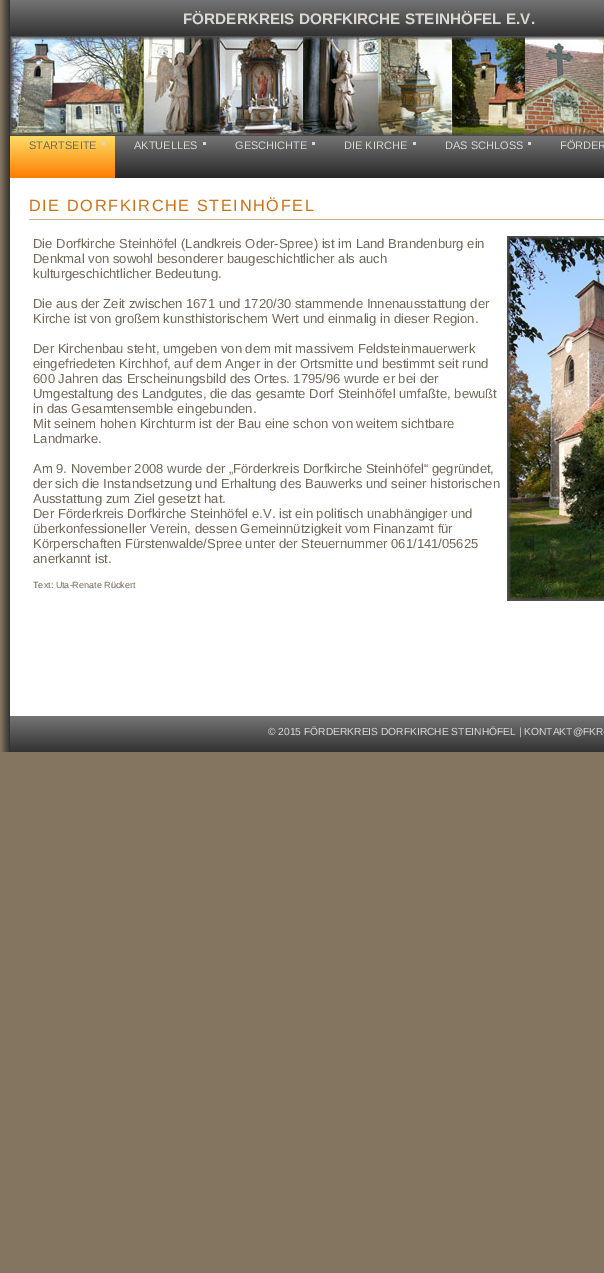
%!PS
<< /PageSize [604 1273] >> setpagedevice
/rgb { dup -16 bitshift 255 div exch dup -8 bitshift 255 and 255 div exch 255 and 255 div setrgbcolor } def
/font { [ exch dup neg 0 0 3 -1 roll 0 0 ] selectfont } def
/text { moveto show } def
/picture { 5 dict begin { /h /w /y /x /name } { exch def } forall
  gsave x y translate w h scale
  w h 8 [w 0 0 h 0 0] name (r) file false 3 colorimage grestore end } def
0 1273 translate 1 -1 scale
4 setmiterlimit
/s1 { /LiberationSans-Bold 15.3 font 16#DBD7D1 rgb } def
/s2 { /LiberationSans-Regular 11 font 16#70695A rgb } def
/s3 { /LiberationSans-Regular 11 font 16#DBD7D1 rgb } def
/s4 { /LiberationSans-Regular 13.05 font 16#70695A rgb } def
/s5 { /LiberationSans-Regular 9 font 16#70695A rgb } def
/s6 { /LiberationSans-Regular 10.25 font 16#DBD7D1 rgb } def
16#837560 rgb
0 0 604 1273 rectfill
16#FFFFFF rgb
11 178 593 538 rectfill
(pic1.raw) 0 0 11 752 picture
(pic2.raw) 10 0 594 36 picture
s1
(FÖRDERKREIS DORFKIRCHE STEINHÖFEL E.V.) 183 24 text
(pic3.raw) 10 36 594 100 picture
(pic4.raw) 10 136 105 42 picture
s2
(STARTSEITE) 29 149 text
16#DBD7D1 rgb
102 142 3 3 rectfill
(pic5.raw) 115 136 101 42 picture
(AKTUELLES) 134 149 text
203 142 3 3 rectfill
(pic6.raw) 216 136 109 42 picture
(GESCHICHTE) 235 149 text
312 142 3 3 rectfill
(pic5.raw) 325 136 101 42 picture
(DIE KIRCHE) 344 149 text
413 142 3 3 rectfill
(pic7.raw) 426 136 115 42 picture
(DAS SCHLOSS) 445 149 text
528 142 3 3 rectfill
(pic8.raw) 541 136 63 42 picture
(FÖRDER) 560 149 text
16#CAAE90 rgb
29 219 575 1 rectfill
/LiberationSans-Regular 16.3 font
16#CE7014 rgb
29 211 moveto 1.6 0 (DIE DORFKIRCHE STEINHÖFEL) ashow
s4
(Die Dorfkirche Steinhöfel \(Landkreis Oder-Spree\) ist im Land Brandenburg ein) 33 248 text
(Denkmal von sowohl besonderer baugeschichtlicher als auch) 33 263 text
(kulturgeschichtlicher Bedeutung.) 33 278 text
(Die aus der Zeit zwischen 1671 und 1720/30 stammende Innenausstattung der) 33 308 text
(Kirche ist von großem kunsthistorischem Wert und einmalig in dieser Region.) 33 323 text
(Der Kirchenbau steht, umgeben von dem mit massivem Feldsteinmauerwerk) 33 353 text
(eingefriedeten Kirchhof, auf dem Anger in der Ortsmitte und bestimmt seit rund) 33 368 text
(600 Jahren das Erscheinungsbild des Ortes. 1795/96 wurde er bei der) 33 383 text
(Umgestaltung des Landgutes, die das gesamte Dorf Steinhöfel umfaßte, bewußt) 33 398 text
(in das Gesamtensemble eingebunden.) 33 413 text
(Mit seinem hohen Kirchturm ist der Bau eine schon von weitem sichtbare) 33 428 text
(Landmarke.) 33 443 text
(Am 9. November 2008 wurde der „Förderkreis Dorfkirche Steinhöfel“ gegründet,) 33 473 text
(der sich die Instandsetzung und Erhaltung des Bauwerks und seiner historischen) 33 488 text
(Ausstattung zum Ziel gesetzt hat.) 33 503 text
(Der Förderkreis Dorfkirche Steinhöfel e.V. ist ein politisch unabhängiger und) 33 518 text
(überkonfessioneller Verein, dessen Gemeinnützigkeit vom Finanzamt für) 33 533 text
(Körperschaften Fürstenwalde/Spree unter der Steuernummer 061/141/05625) 33 548 text
(anerkannt ist.) 33 563 text
s5
(Text: Uta-Renate Rückert) 33 588 text
(pic9.raw) 507 236 97 365 picture
(pic2.raw) 10 716 594 36 picture
s6
(© 2015 FÖRDERKREIS DORFKIRCHE STEINHÖFEL | KONTAKT@FKR-) 268 735 text
showpage
